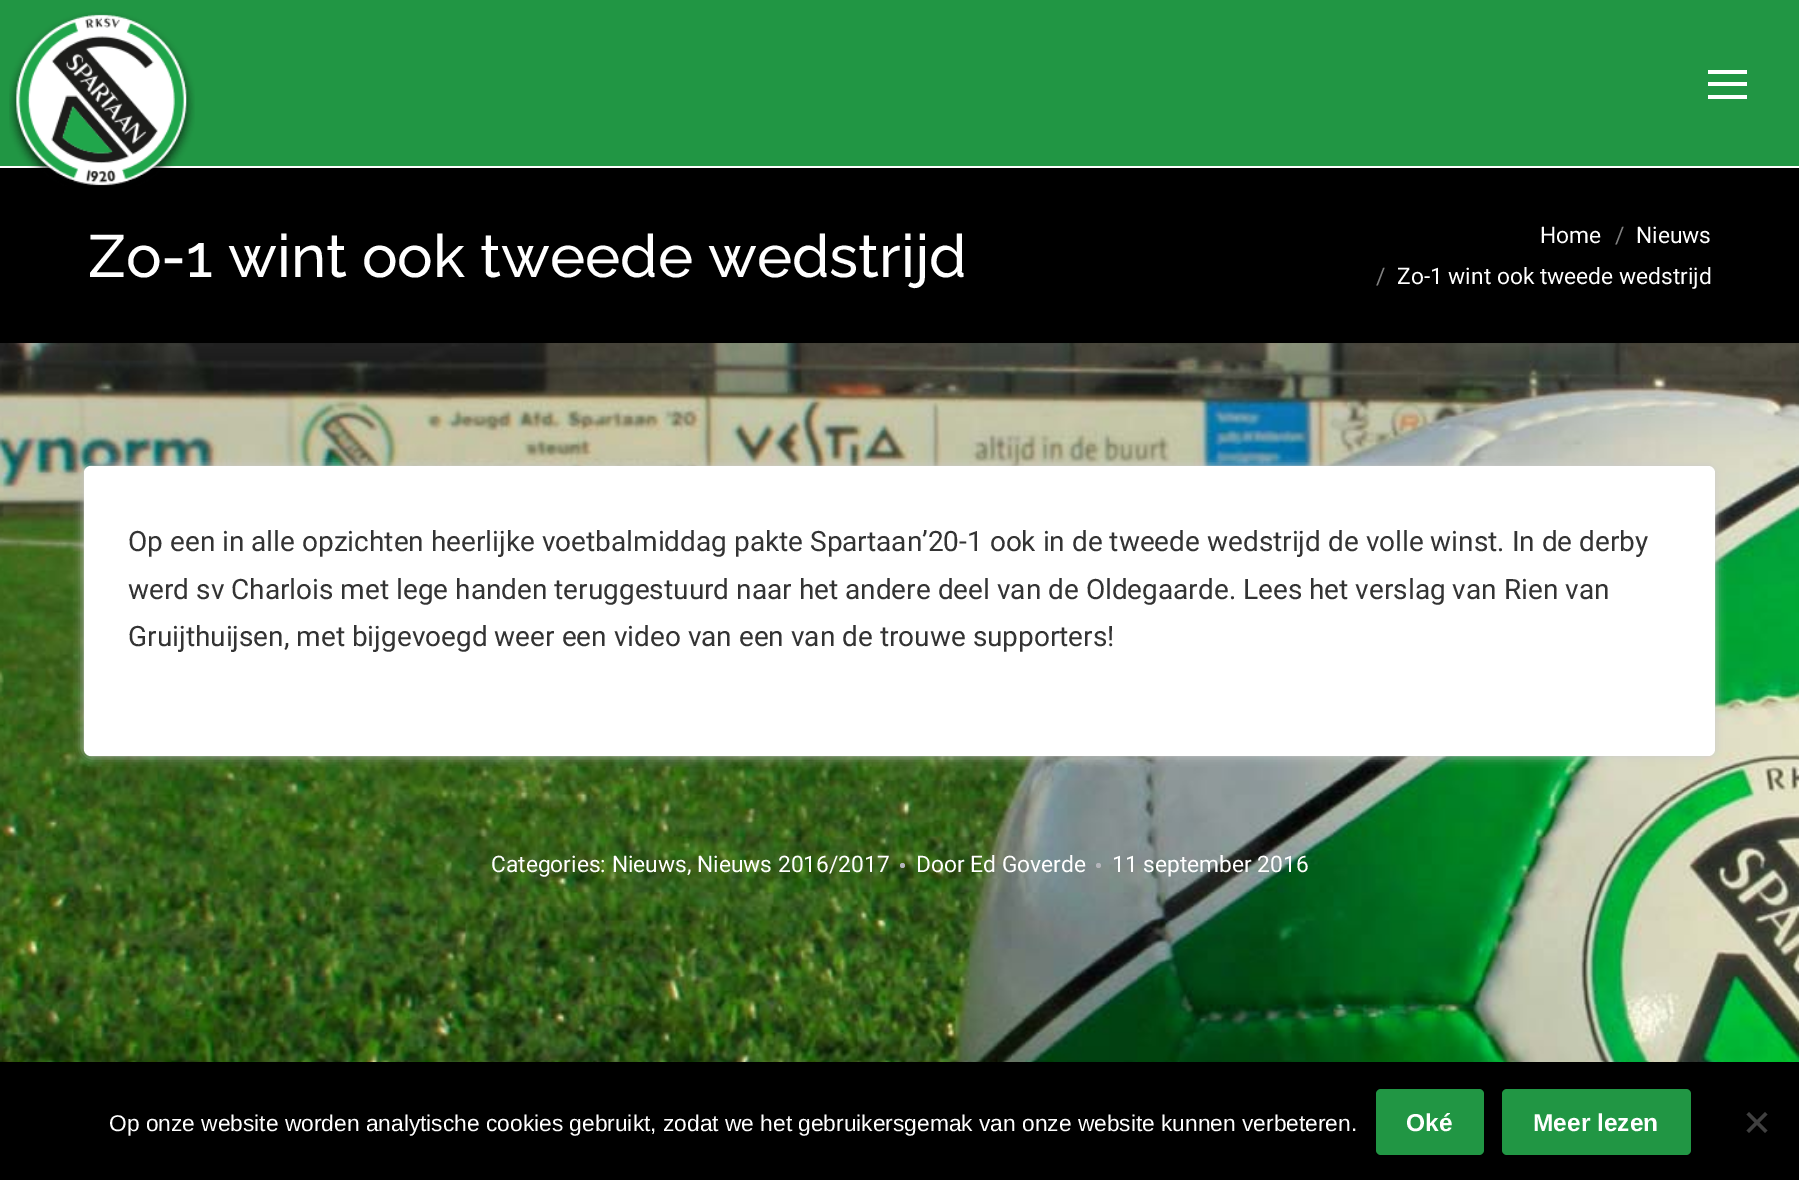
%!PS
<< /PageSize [1799 1180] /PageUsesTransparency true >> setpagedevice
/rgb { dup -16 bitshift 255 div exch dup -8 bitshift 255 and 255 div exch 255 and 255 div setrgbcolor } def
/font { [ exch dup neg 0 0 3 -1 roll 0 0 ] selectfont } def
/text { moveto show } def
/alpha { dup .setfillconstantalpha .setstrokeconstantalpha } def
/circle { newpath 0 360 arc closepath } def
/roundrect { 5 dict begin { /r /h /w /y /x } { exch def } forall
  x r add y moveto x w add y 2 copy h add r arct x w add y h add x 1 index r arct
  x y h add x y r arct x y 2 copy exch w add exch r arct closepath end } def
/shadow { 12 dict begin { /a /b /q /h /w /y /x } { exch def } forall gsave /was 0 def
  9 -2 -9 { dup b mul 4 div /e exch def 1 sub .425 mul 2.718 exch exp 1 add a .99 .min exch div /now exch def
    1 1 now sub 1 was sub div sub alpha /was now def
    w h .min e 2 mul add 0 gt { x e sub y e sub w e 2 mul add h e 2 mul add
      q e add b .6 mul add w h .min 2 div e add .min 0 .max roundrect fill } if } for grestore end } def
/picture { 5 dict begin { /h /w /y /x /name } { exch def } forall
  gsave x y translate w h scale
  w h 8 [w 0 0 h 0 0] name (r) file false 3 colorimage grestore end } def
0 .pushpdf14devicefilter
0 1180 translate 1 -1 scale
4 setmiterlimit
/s1 { /Raleway-Medium 59.5 font 16#FFFFFF rgb } def
/s2 { /Roboto-Regular 22.75 font 16#FFFFFF rgb } def
/s3 { /Roboto-Regular 22.75 font 16#808080 rgb } def
/s4 { /Roboto-Regular 28 font 16#333333 rgb } def
/s5 { /LiberationSans-Regular 22.75 font 16#FFFFFF rgb } def
/s6 { /LiberationSans-Bold 24.5 font 16#FFFFFF rgb } def
16#FFFFFF rgb
0 0 1799 1180 rectfill
(pic1.raw) 0 343 1799 719 picture
16#219644 rgb
0 0 1799 166 rectfill
16#000000 rgb
0 168 1799 175 rectfill
(pic2.raw) 9 12 186 174 picture
16#FFFFFF rgb
1708 70 39 4 rectfill
1708 82 39 4 rectfill
1708 95 39 4 rectfill
s1
(Zo-1 wint ook tweede wedstrijd) 88 277 text
s2
(Home) 1540 243 text
s3
(/) 1615 243 text
s2
(Nieuws) 1636 243 text
s3
(/) 1376 284 text
s2
(Zo-1 wint ook tweede wedstrijd) 1397 284 text
16#CCCCCC rgb
84 466 1631 290 7 5 1 shadow
16#FFFFFF rgb
84 466 1631 290 7 roundrect fill
s4
(Op een in alle opzichten heerlijke voetbalmiddag pakte Spartaan’20-1 ook in de tweede wedstrijd de volle winst. In de derby) 128 551 text
(werd sv Charlois met lege handen teruggestuurd naar het andere deel van de Oldegaarde. Lees het verslag van Rien van) 128 599 text
(Gruijthuijsen, met bijgevoegd weer een video van een van de trouwe supporters!) 128 646 text
s2
(Categories: Nieuws, Nieuws 2016/2017) 491 872 text
16#B4B5BB rgb
902.5 865.5 2.5 circle fill
s2
(Door Ed Goverde) 916 872 text
16#B4B5BB rgb
1098.5 865.5 2.5 circle fill
s2
(11 september 2016) 1112 872 text
16#000000 rgb
0 1062 1799 118 rectfill
s5
(Op onze website worden analytische cookies gebruikt, zodat we het gebruikersgemak van onze website kunnen verbeteren.) 109 1131 text
16#219644 rgb
1376 1089 108 66 5 roundrect fill
s6
(Oké) 1406 1131 text
16#219644 rgb
1502 1089 189 66 5 roundrect fill
s6
(Meer lezen) 1533 1131 text
16#404040 rgb
1765 1112 moveto 1767.5 1114.5 lineto 1749 1133 lineto 1746.5 1130.5 lineto closepath fill
1746.5 1114.5 moveto 1749 1112 lineto 1767.5 1130.5 lineto 1765 1133 lineto closepath fill
.poppdf14devicefilter showpage
